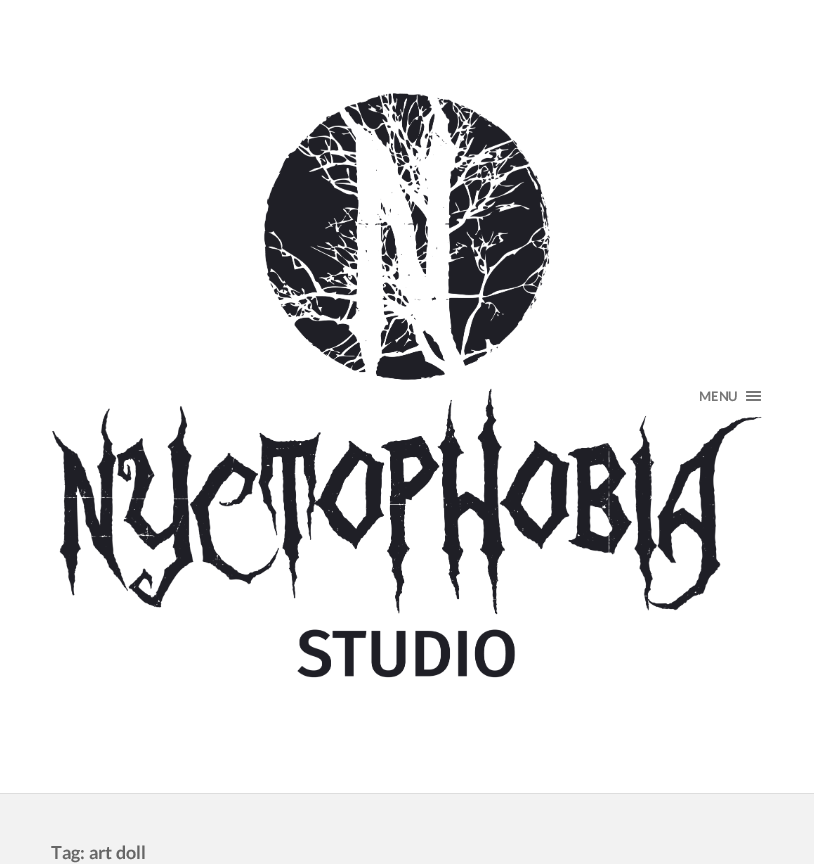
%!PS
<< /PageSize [814 864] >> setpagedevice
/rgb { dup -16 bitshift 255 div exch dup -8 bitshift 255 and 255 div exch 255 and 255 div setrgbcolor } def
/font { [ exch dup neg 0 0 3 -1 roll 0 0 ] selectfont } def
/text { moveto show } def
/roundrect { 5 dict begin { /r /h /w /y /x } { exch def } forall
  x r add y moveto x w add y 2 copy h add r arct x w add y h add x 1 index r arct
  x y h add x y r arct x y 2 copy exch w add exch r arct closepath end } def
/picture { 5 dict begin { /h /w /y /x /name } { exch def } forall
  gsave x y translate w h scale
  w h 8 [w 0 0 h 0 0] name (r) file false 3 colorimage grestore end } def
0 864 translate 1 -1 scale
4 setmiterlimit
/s1 { /Lato-Bold 13 font 16#767676 rgb } def
/s2 { /Lato-Bold 18 font 16#666666 rgb } def
16#F2F2F2 rgb
0 0 814 864 rectfill
16#FFFFFF rgb
0 0 814 793 rectfill
16#DDDDDD rgb
0 793 814 1 rectfill
(pic1.raw) 52 93 710 585 picture
s1
(MENU) 699 401 text
746 391 15 2 1 roundrect fill
746 395 15 2 1 roundrect fill
746 399 15 2 1 roundrect fill
s2
(Tag: art doll) 51 859 text
showpage
